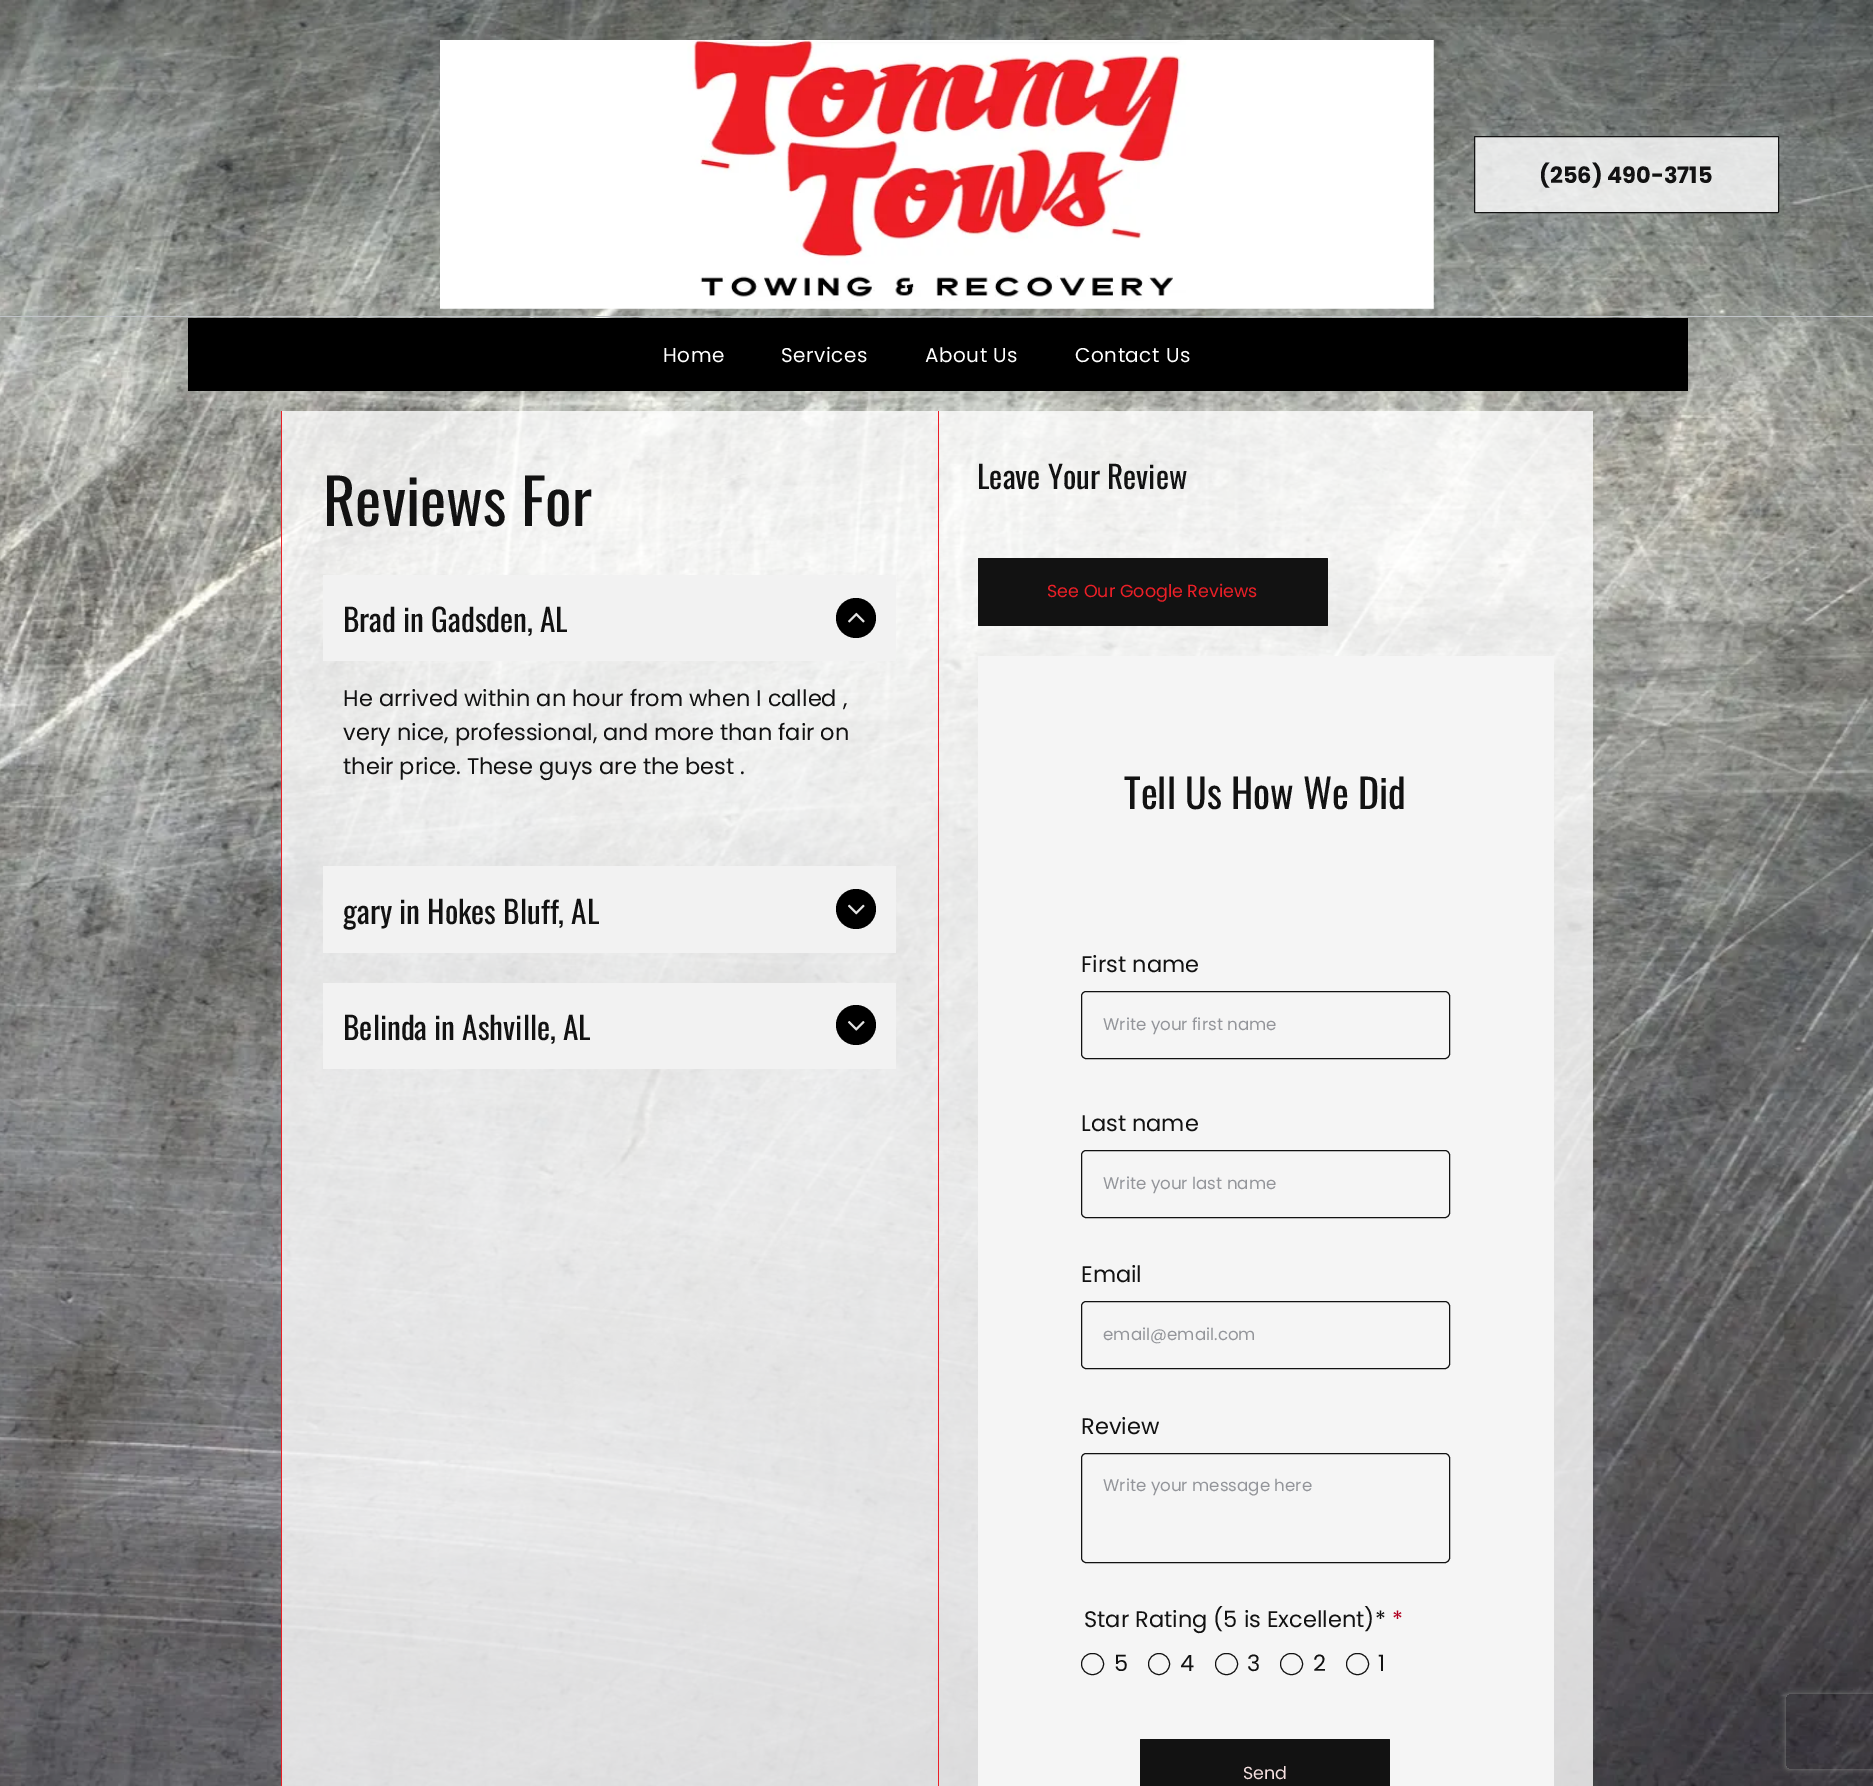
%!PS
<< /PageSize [1873 1786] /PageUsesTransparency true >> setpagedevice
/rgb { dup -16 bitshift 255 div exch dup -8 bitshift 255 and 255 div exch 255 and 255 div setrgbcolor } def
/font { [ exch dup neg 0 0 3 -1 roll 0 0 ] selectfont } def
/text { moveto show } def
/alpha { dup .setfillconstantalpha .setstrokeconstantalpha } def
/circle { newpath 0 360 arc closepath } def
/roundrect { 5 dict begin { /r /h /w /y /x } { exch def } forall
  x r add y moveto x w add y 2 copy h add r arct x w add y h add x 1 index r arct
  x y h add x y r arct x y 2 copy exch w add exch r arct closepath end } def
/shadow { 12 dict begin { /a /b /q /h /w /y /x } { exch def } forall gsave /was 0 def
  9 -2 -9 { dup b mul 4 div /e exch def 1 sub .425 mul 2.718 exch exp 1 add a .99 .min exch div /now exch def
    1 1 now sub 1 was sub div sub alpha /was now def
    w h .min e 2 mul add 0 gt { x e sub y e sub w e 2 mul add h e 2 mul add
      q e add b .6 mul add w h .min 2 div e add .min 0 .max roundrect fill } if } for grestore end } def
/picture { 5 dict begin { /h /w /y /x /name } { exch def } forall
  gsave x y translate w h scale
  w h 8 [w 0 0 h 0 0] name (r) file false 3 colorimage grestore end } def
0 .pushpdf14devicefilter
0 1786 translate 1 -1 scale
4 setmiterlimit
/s1 { /Poppins-Bold 22.5 font 16#121212 rgb } def
/s2 { /Oswald-Regular 62.5 font 16#121212 rgb } def
/s3 { /Oswald-Regular 31.25 font 16#121212 rgb } def
/s4 { /Poppins-Regular 22.5 font 16#121212 rgb } def
/s5 { /Poppins-Regular 17.5 font 16#EC1F27 rgb } def
/s6 { /Oswald-Regular 40 font 16#121212 rgb } def
/s7 { /Poppins-Regular 16.7 font 16#93959A rgb } def
/s8 { /Poppins-Regular 22.5 font 16#B00020 rgb } def
/s9 { /Poppins-Regular 17.5 font 16#F5E0E0 rgb } def
16#FFFFFF rgb
0 0 1873 1786 rectfill
(pic1.raw) 0 0 1873 1786 picture
(pic2.raw) 440 40 994 269 picture
0.8 alpha
1474.5 136.5 304 76 0.5 roundrect fill
1 alpha
16#121212 rgb
1474.5 136.5 304 76 0.5 roundrect stroke
s1
(\(256\) 490-3715) 1539 183 text
16#C0C4C9 rgb
0 316 1873 1 rectfill
16#000000 rgb
188 318 1500 73 rectfill
/Poppins-Regular 20 font
16#FFFFFF rgb
663 362 moveto 0.5 0 (Home) ashow
781 362 moveto 0.5 0 (Services) ashow
925 362 moveto 0.5 0 (About Us) ashow
1075 362 moveto 0.5 0 (Contact Us) ashow
0.8 alpha
282 411 1311 1375 rectfill
1 alpha
16#EC1F27 rgb
281 411 1 1375 rectfill
s2
(Reviews For) 323 526 text
16#F2F2F2 rgb
323 575 573 86 rectfill
s3
(Brad in Gadsden, AL) 343 632 text
16#000000 rgb
856 618 20 circle fill
(pic3.raw) 848 612 17 11 picture
s4
(He arrived within an hour from when I called ,) 343 706 text
(very nice, professional, and more than fair on) 343 740 text
(their price. These guys are the best .) 343 774 text
16#F2F2F2 rgb
323 866 573 87 rectfill
s3
(gary in Hokes Bluff, AL) 343 924 text
16#000000 rgb
856 909 20 circle fill
(pic4.raw) 848 904 17 11 picture
16#F2F2F2 rgb
323 983 573 86 rectfill
s3
(Belinda in Ashville, AL) 343 1040 text
16#000000 rgb
856 1025 20 circle fill
(pic5.raw) 847 1021 18 10 picture
16#EC1F27 rgb
938 411 1 1375 rectfill
s3
(Leave Your Review) 977 489 text
978 558 350 68 1 roundrect fill
s5
(See Our Google Reviews) 1047 597 text
16#F5F5F5 rgb
978 656 576 1130 rectfill
s6
(Tell Us How We Did) 1124 809 text
s4
(First name) 1081 972 text
1081.5 991.5 368 67 4.5 roundrect stroke
s7
(Write your first name) 1103 1030 text
s4
(Last name) 1081 1131 text
1081.5 1150.5 368 67 4.5 roundrect stroke
s7
(Write your last name) 1103 1189 text
s4
(Email) 1081 1282 text
1081.5 1301.5 368 67 4.5 roundrect stroke
s7
(email@email.com) 1103 1340 text
s4
(Review) 1081 1434 text
1081.5 1453.5 368 109 4.5 roundrect stroke
s7
(Write your message here) 1103 1491 text
s4
(Star Rating \(5 is Excellent\)*) 1084 1627 text
s8
(*) 1392 1627 text
16#121212 rgb
1081.5 1653.5 22 21 10.5 roundrect stroke
(5) 1114 1671 text
1159 1664 10.5 circle stroke
(4) 1180 1671 text
1215.5 1653.5 22 21 10.5 roundrect stroke
(3) 1247 1671 text
1280.5 1653.5 22 21 10.5 roundrect stroke
(2) 1313 1671 text
1346.5 1653.5 22 21 10.5 roundrect stroke
(1) 1378 1671 text
1140 1739 250 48 1 roundrect fill
s9
(Send) 1243 1779 text
gsave
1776 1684 moveto 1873 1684 lineto 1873 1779 lineto 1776 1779 lineto closepath 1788.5 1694 moveto 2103.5 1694 lineto 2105 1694 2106 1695 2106 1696.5 curveto 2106 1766.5 lineto 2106 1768 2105 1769 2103.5 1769 curveto 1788.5 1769 lineto 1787 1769 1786 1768 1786 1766.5 curveto 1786 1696.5 lineto 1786 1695 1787 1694 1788.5 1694 curveto closepath eoclip newpath
16#808080 rgb
1786 1694 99 75 2.5 3 1 shadow
grestore
.poppdf14devicefilter showpage
